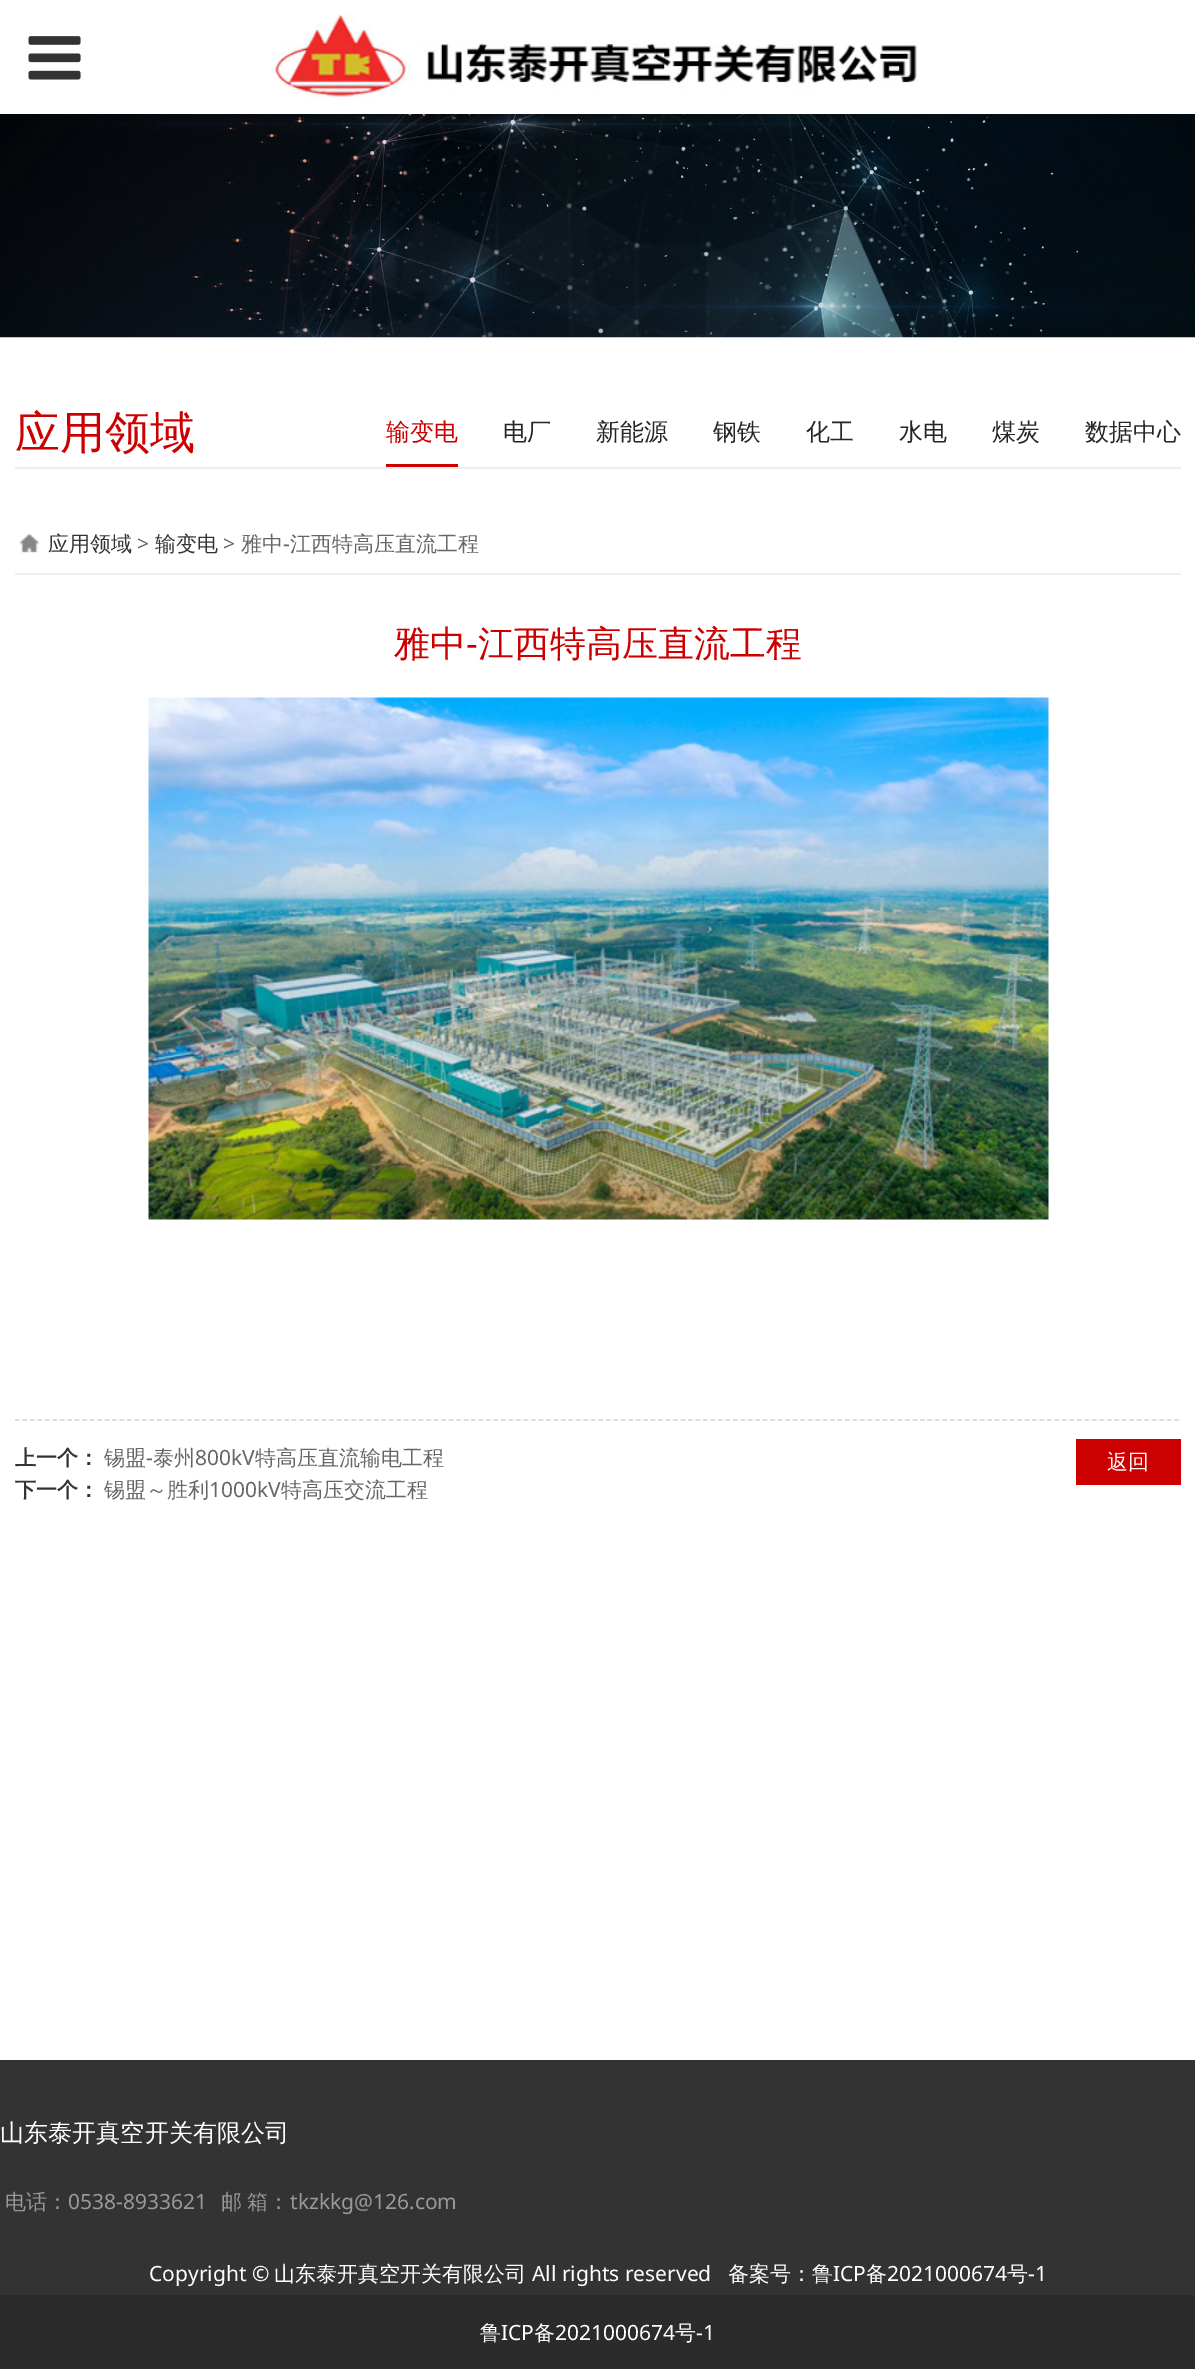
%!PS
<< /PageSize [1195 2377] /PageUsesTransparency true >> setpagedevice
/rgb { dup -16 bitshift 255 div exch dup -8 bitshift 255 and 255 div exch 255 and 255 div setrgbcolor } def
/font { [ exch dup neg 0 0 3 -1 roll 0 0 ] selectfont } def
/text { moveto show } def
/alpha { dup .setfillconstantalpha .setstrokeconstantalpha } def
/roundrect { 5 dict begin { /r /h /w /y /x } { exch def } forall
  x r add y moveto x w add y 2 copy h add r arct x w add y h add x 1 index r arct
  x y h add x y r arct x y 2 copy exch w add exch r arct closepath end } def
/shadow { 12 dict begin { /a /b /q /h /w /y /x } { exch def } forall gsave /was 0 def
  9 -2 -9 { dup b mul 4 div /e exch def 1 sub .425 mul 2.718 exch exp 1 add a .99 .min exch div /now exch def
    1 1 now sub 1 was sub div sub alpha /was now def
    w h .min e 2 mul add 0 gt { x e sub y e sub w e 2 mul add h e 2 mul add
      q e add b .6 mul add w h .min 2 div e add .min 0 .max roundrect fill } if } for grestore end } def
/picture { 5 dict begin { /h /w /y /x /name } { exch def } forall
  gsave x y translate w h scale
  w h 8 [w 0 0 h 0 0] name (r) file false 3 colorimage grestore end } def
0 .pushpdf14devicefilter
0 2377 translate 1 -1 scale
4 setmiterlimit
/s1 { /WenQuanYiZenHei-Medium 45 font 16#CC0000 rgb } def
/s2 { /WenQuanYiZenHei-Medium 24 font 16#CC0000 rgb } def
/s3 { /WenQuanYiZenHei-Medium 24 font 16#262626 rgb } def
/s4 { /WenQuanYiZenHei-Medium 21 font 16#333333 rgb } def
/s5 { /NotoSans-Regular 21 font 16#666666 rgb } def
/s6 { /WenQuanYiZenHei-Medium 21 font 16#666666 rgb } def
/s7 { /WenQuanYiZenHei-Medium 36 font 16#CC0000 rgb } def
/s8 { /NotoSans-Regular 36 font 16#CC0000 rgb } def
/s9 { /WenQuanYiZenHei-Bold 21 font 16#333333 rgb } def
/s10 { /WenQuanYiZenHei-Medium 21 font 16#FFFFFF rgb } def
/s11 { /WenQuanYiZenHei-Medium 24.1 font 16#FFFFFF rgb } def
/s12 { /WenQuanYiZenHei-Medium 21 font 16#999999 rgb } def
/s13 { /NotoSans-Regular 21 font 16#999999 rgb } def
/s14 { /NotoSans-Regular 21 font 16#FFFFFF rgb } def
16#FFFFFF rgb
0 0 1195 2377 rectfill
(pic3.raw) 0 114 1195 224 picture
gsave
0 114 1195 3 rectclip
16#000000 rgb
0 2 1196 114 0 1.5 0.1 shadow
grestore
(pic1.raw) 28 36 53 44 picture
(pic2.raw) 275 14 643 85 picture
16#EEEEEE rgb
15 467 1166 2 rectfill
s1
(应用领域) 15 448 text
s2
(输变电) 386 440 text
386 464 72 3 rectfill
s3
(电厂) 503 440 text
(新能源) 596 440 text
(钢铁) 713 440 text
(化工) 806 440 text
(水电) 899 440 text
(煤炭) 992 440 text
(数据中心) 1085 440 text
(pic4.raw) 19 533 20 20 picture
16#EEEEEE rgb
15 573 1166 2 rectfill
s4
(应用领域) 48 551 text
s5
(>) 137 551 text
s4
(输变电) 155 551 text
s5
(>) 223 551 text
s6
(雅中) 241 551 text
s5
(-) 283 551 text
s6
(江西特高压直流工程) 290 551 text
s7
(雅中) 394 656 text
s8
(-) 466 656 text
s7
(江西特高压直流工程) 478 656 text
(pic5.raw) 148 697 901 523 picture
16#D9D9D9 rgb
1.5 setlinewidth
[4.5 2.98] 0 setdash
15 1420 moveto 1180.5 1420 lineto stroke
s9
(上一个：) 15 1465 text
s6
(锡盟) 104 1465 text
s5
(-) 146 1465 text
s6
(泰州) 153 1465 text
s5
(800kV) 195 1465 text
s6
(特高压直流输电工程) 255 1465 text
s9
(下一个：) 15 1497 text
s6
(锡盟～胜利) 104 1497 text
s5
(1000kV) 209 1497 text
s6
(特高压交流工程) 281 1497 text
16#CC0000 rgb
1076 1439 105 46 rectfill
s10
(返回) 1107 1469 text
16#333333 rgb
0 2060 1195 235 rectfill
s11
(山东泰开真空开关有限公司) 0 2141 text
s12
(电话：) 5 2209 text
s13
(0538-8933621) 68 2209 text
/WenQuanYiZenHei-Medium 21 font
221 2209 moveto -1 0 32 (邮 箱：) widthshow
s13
(tkzkkg@126.com) 290 2209 text
s14
(Copyright ©) 149 2281 text
s10
(山东泰开真空开关有限公司) 274 2281 text
s14
(All rights reserved) 532 2281 text
s10
(备案号：鲁) 728 2281 text
s14
(ICP) 833 2281 text
s10
(备) 866 2281 text
s14
(2021000674) 887 2281 text
s10
(号) 1007 2281 text
s14
(-1) 1028 2281 text
16#2B2B2B rgb
0 2295 1195 74 rectfill
s10
(鲁) 480 2340 text
s14
(ICP) 501 2340 text
s10
(备) 534 2340 text
s14
(2021000674) 555 2340 text
s10
(号) 675 2340 text
s14
(-1) 696 2340 text
.poppdf14devicefilter showpage
